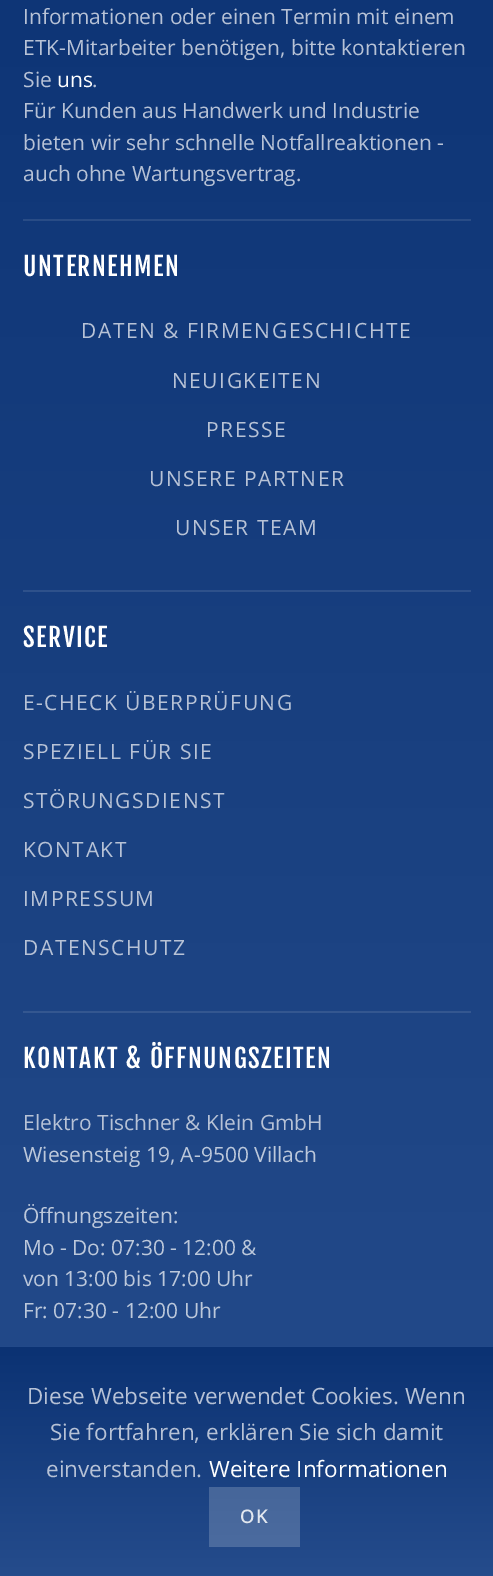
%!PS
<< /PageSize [493 1576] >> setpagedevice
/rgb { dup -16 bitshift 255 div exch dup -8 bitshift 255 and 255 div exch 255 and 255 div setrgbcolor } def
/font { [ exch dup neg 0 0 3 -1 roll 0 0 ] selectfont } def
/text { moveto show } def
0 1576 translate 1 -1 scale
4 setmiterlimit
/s1 { /OpenSans-Regular 21 font 16#B7C2D6 rgb } def
/s2 { /OpenSans-Regular 21 font 16#FFFFFF rgb } def
/s3 { /OpenSans-Regular 21 font 16#BCC8DB rgb } def
/s4 { /OpenSans-Regular 22.5 font 16#B7C2D6 rgb } def
/s5 { /OpenSans-Regular 22.5 font 16#FFFFFF rgb } def
16#FFFFFF rgb
0 0 493 1576 rectfill
gsave 0 0 moveto 493 0 lineto 493 1347 lineto 0 1347 lineto closepath clip newpath
<< /ShadingType 2 /ColorSpace /DeviceRGB /Coords [247 -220 247 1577] /Extend [true true] /Function << /FunctionType 2 /Domain [0 1] /C0 [0.043 0.196 0.451] /C1 [0.145 0.298 0.549] /N 1 >> >> shfill grestore
s1
(Informationen oder einen Termin mit einem) 23 24 text
(ETK-Mitarbeiter benötigen, bitte kontaktieren) 23 55 text
(Sie) 23 87 text
s2
(uns) 57 87 text
s1
(.) 92 87 text
(Für Kunden aus Handwerk und Industrie) 23 118 text
(bieten wir sehr schnelle Notfallreaktionen -) 23 150 text
(auch ohne Wartungsvertrag.) 23 181 text
16#294C86 rgb
23 219 448 2 rectfill
/FjallaOne-Regular 25.5 font
16#FFFFFF rgb
23 276 moveto 1.5 0 (UNTERNEHMEN) ashow
/OpenSans-Regular 21 font
16#B7C2D6 rgb
81 338 moveto 1.5 0 (DATEN & FIRMENGESCHICHTE) ashow
172 388 moveto 1.5 0 (NEUIGKEITEN) ashow
206 437 moveto 1.5 0 (PRESSE) ashow
149 486 moveto 1.5 0 (UNSERE PARTNER) ashow
175 535 moveto 1.5 0 (UNSER TEAM) ashow
16#2E518B rgb
23 590 448 2 rectfill
/FjallaOne-Regular 25.5 font
16#FFFFFF rgb
23 647 moveto 1.5 0 (SERVICE) ashow
/OpenSans-Regular 21 font
16#B7C2D6 rgb
23 710 moveto 1.5 0 (E-CHECK ÜBERPRÜFUNG) ashow
23 759 moveto 1.5 0 (SPEZIELL FÜR SIE) ashow
23 808 moveto 1.5 0 (STÖRUNGSDIENST) ashow
23 857 moveto 1.5 0 (KONTAKT) ashow
23 906 moveto 1.5 0 (IMPRESSUM) ashow
23 955 moveto 1.5 0 (DATENSCHUTZ) ashow
16#345790 rgb
23 1011 448 2 rectfill
/FjallaOne-Regular 25.5 font
16#FFFFFF rgb
23 1068 moveto 1.5 0 (KONTAKT & ÖFFNUNGSZEITEN) ashow
s1
(Elektro Tischner & Klein GmbH) 23 1130 text
s3
(Wiesensteig 19, A-9500 Villach) 23 1162 text
(Öffnungszeiten:) 23 1223 text
(Mo - Do: 07:30 - 12:00 &) 23 1255 text
(von 13:00 bis 17:00 Uhr) 23 1286 text
(Fr: 07:30 - 12:00 Uhr) 23 1318 text
gsave 0 1347 moveto 493 1347 lineto 493 1576 lineto 0 1576 lineto closepath clip newpath
<< /ShadingType 2 /ColorSpace /DeviceRGB /Coords [247 1347 247 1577] /Extend [true true] /Function << /FunctionType 2 /Domain [0 1] /C0 [0.043 0.196 0.451] /C1 [0.145 0.298 0.549] /N 1 >> >> shfill grestore
gsave 209 1487 moveto 300 1487 lineto 300 1547 lineto 209 1547 lineto closepath clip newpath
<< /ShadingType 2 /ColorSpace /DeviceRGB /Coords [247 1347 247 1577] /Extend [true true] /Function << /FunctionType 2 /Domain [0 1] /C0 [0.224 0.349 0.557] /C1 [0.306 0.431 0.635] /N 1 >> >> shfill grestore
s4
(Diese Webseite verwendet Cookies. Wenn) 27 1404 text
(Sie fortfahren, erklären Sie sich damit) 50 1440 text
(einverstanden.) 46 1477 text
s5
(Weitere Informationen) 209 1477 text
/OpenSans-Bold 18 font
16#E2E7EF rgb
240 1523 moveto 1.5 0 (OK) ashow
showpage
